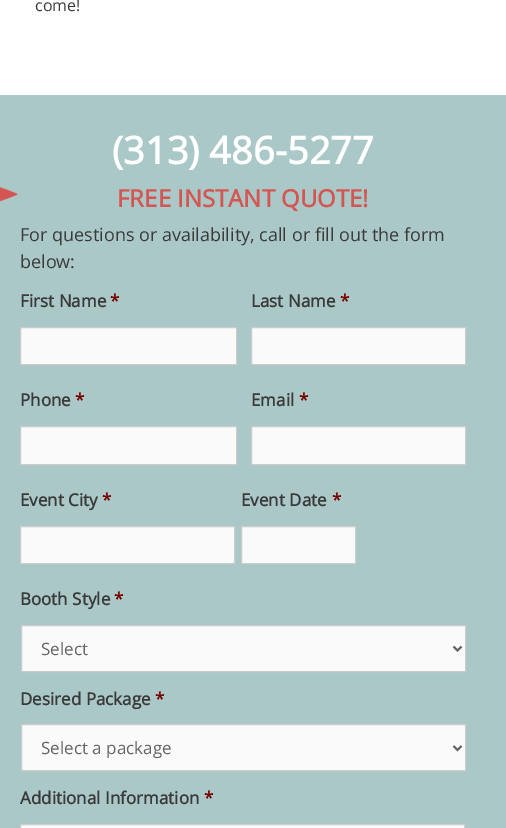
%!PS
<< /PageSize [506 828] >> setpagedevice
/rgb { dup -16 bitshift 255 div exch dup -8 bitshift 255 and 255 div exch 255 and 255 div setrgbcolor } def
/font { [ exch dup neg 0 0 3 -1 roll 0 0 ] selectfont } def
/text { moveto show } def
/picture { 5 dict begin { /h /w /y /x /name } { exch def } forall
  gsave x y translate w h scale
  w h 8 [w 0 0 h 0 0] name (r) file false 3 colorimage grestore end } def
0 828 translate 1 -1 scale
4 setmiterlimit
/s1 { /OpenSans-Regular 16 font 16#3A3A3A rgb } def
/s2 { /OpenSans-Bold 38 font 16#FFFFFF rgb } def
/s3 { /OpenSans-Bold 24 font 16#D45652 rgb } def
/s4 { /OpenSans-Regular 18 font 16#3A3A3A rgb } def
/s5 { /OpenSans-Bold 17 font 16#3A3A3A rgb } def
/s6 { /OpenSans-Bold 17 font 16#790000 rgb } def
/s7 { /OpenSans-Regular 17 font 16#666666 rgb } def
16#FFFFFF rgb
0 0 506 828 rectfill
s1
(come!) 35 11 text
16#ABC8C8 rgb
0 95 506 733 rectfill
(pic1.raw) 0 187 18 15 picture
s2
(\(313\) 486-5277) 112 164 text
s3
(FREE INSTANT QUOTE!) 117 207 text
s4
(For questions or availability, call or fill out the form) 20 241 text
(below:) 20 268 text
s5
(First Name) 20 307 text
s6
(*) 110 307 text
16#FAFAFA rgb
20.5 327.5 moveto 236.5 327.5 lineto 236.5 364.5 lineto 20.5 364.5 lineto closepath gsave fill grestore
16#CCCCCC rgb
stroke
s5
(Last Name) 251 307 text
s6
(*) 340 307 text
16#FAFAFA rgb
251.5 327.5 moveto 465.5 327.5 lineto 465.5 364.5 lineto 251.5 364.5 lineto closepath gsave fill grestore
16#CCCCCC rgb
stroke
s5
(Phone) 20 406 text
s6
(*) 75 406 text
16#FAFAFA rgb
20.5 426.5 moveto 236.5 426.5 lineto 236.5 464.5 lineto 20.5 464.5 lineto closepath gsave fill grestore
16#CCCCCC rgb
stroke
s5
(Email) 251 406 text
s6
(*) 299 406 text
16#FAFAFA rgb
251.5 426.5 moveto 465.5 426.5 lineto 465.5 464.5 lineto 251.5 464.5 lineto closepath gsave fill grestore
16#CCCCCC rgb
stroke
s5
(Event City) 20 506 text
s6
(*) 102 506 text
16#FAFAFA rgb
20.5 526.5 moveto 234.5 526.5 lineto 234.5 563.5 lineto 20.5 563.5 lineto closepath gsave fill grestore
16#CCCCCC rgb
stroke
s5
(Event Date) 241 506 text
s6
(*) 332 506 text
16#FAFAFA rgb
241.5 526.5 moveto 355.5 526.5 lineto 355.5 563.5 lineto 241.5 563.5 lineto closepath gsave fill grestore
16#CCCCCC rgb
stroke
s5
(Booth Style) 20 605 text
s6
(*) 114 605 text
16#FAFAFA rgb
21.5 625.5 moveto 465.5 625.5 lineto 465.5 671.5 lineto 21.5 671.5 lineto closepath gsave fill grestore
16#CCCCCC rgb
stroke
16#666666 rgb
2 setlinewidth
453.5 646.5 moveto 457.5 650.5 lineto 461.5 646.5 lineto stroke
s7
(Select) 41 655 text
s5
(Desired Package) 20 705 text
s6
(*) 155 705 text
16#FAFAFA rgb
21.5 724.5 moveto 465.5 724.5 lineto 465.5 770.5 lineto 21.5 770.5 lineto closepath gsave fill grestore
16#CCCCCC rgb
1 setlinewidth
stroke
16#666666 rgb
2 setlinewidth
453.5 746 moveto 457.5 750 lineto 461.5 746 lineto stroke
s7
(Select a package) 41 754 text
s5
(Additional Information) 20 804 text
s6
(*) 204 804 text
16#FAFAFA rgb
20.5 824.5 moveto 464.5 824.5 lineto 464.5 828.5 lineto 20.5 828.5 lineto closepath gsave fill grestore
16#CCCCCC rgb
1 setlinewidth
stroke
showpage
